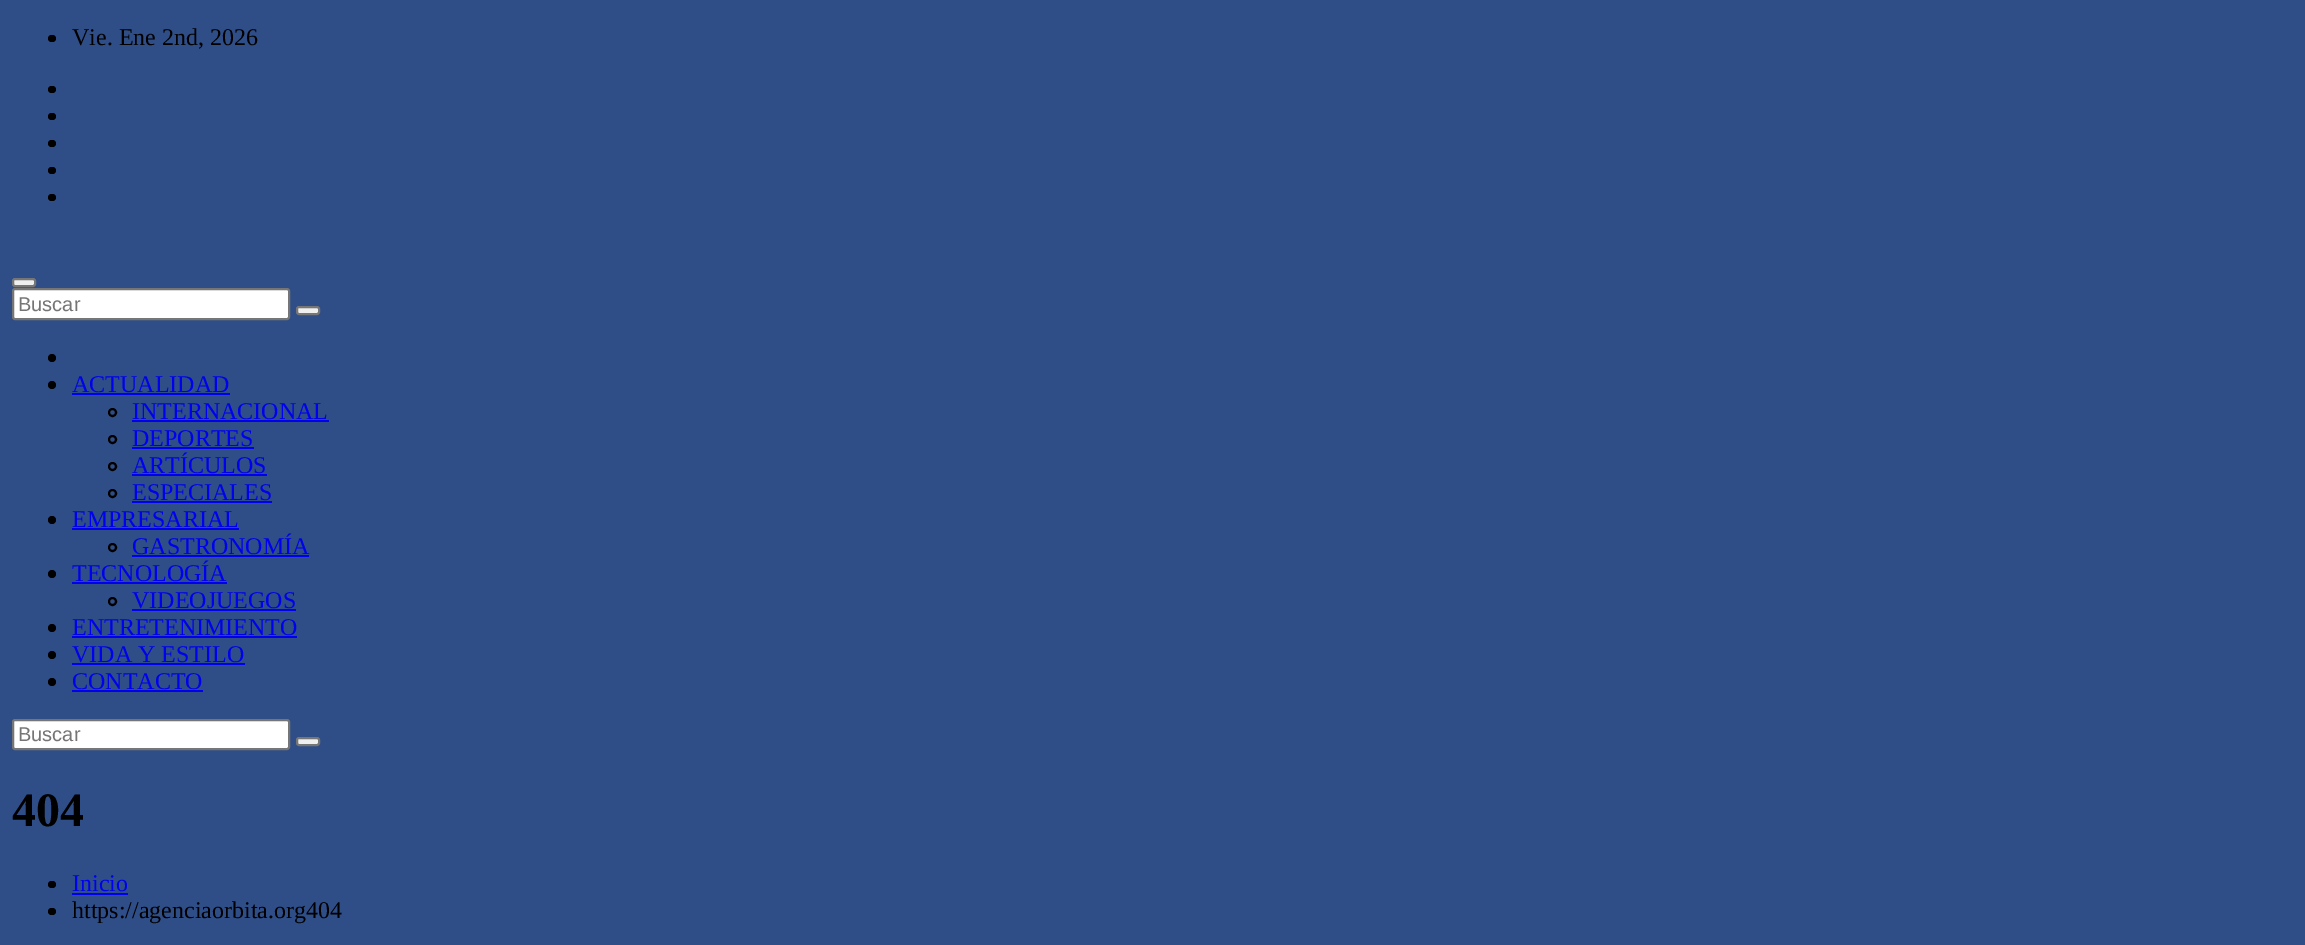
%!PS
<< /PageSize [2305 945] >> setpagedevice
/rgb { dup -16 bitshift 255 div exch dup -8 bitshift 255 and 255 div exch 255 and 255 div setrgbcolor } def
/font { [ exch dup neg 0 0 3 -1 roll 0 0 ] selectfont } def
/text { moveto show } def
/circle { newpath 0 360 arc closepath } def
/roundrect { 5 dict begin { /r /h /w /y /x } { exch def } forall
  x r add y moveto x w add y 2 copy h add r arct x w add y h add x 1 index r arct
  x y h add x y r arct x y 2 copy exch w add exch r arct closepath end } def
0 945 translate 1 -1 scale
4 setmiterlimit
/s1 { /LiberationSerif-Regular 24 font 16#000000 rgb } def
/s2 { /LiberationSans-Regular 20 font 16#757575 rgb } def
/s3 { /LiberationSerif-Regular 24 font 16#0000EE rgb } def
/s4 { /LiberationSerif-Bold 48 font 16#000000 rgb } def
16#2F4E87 rgb
0 0 2305 945 rectfill
16#000000 rgb
48 35 8 7 3.5 roundrect fill
s1
(Vie. Ene 2nd, 2026) 72 45 text
48 86 8 7 3.5 roundrect fill
48 113 8 7 3.5 roundrect fill
48 140 8 7 3.5 roundrect fill
48 167 8 7 3.5 roundrect fill
48 194 8 7 3.5 roundrect fill
16#EFEFEF rgb
13 279 22 7 2 roundrect gsave fill grestore
16#767676 rgb
2 setlinewidth
stroke
16#FFFFFF rgb
13 289 276 30 2 roundrect gsave fill grestore
16#767676 rgb
stroke
s2
(Buscar) 18 311 text
16#EFEFEF rgb
297 307 22 7 2 roundrect gsave fill grestore
16#767676 rgb
stroke
16#000000 rgb
52 358 4 circle fill
52 385 4 circle fill
s3
(ACTUALIDAD) 72 392 text
72 393 158 2 rectfill
16#000000 rgb
112.5 412.5 3.5 circle stroke
s3
(INTERNACIONAL) 132 419 text
132 420 197 2 rectfill
16#000000 rgb
112.5 439.5 3.5 circle stroke
s3
(DEPORTES) 132 446 text
132 447 122 2 rectfill
16#000000 rgb
112.5 466.5 3.5 circle stroke
s3
(ARTÍCULOS) 132 473 text
132 474 135 2 rectfill
16#000000 rgb
112.5 493.5 3.5 circle stroke
s3
(ESPECIALES) 132 500 text
132 501 140 2 rectfill
16#000000 rgb
52 520 4 circle fill
s3
(EMPRESARIAL) 72 527 text
72 528 167 2 rectfill
16#000000 rgb
112.5 547.5 3.5 circle stroke
s3
(GASTRONOMÍA) 132 554 text
132 555 177 2 rectfill
16#000000 rgb
52 574 4 circle fill
s3
(TECNOLOGÍA) 72 581 text
72 582 155 2 rectfill
16#000000 rgb
112.5 601.5 3.5 circle stroke
s3
(VIDEOJUEGOS) 132 608 text
132 609 164 2 rectfill
16#000000 rgb
52 628 4 circle fill
s3
(ENTRETENIMIENTO) 72 635 text
72 636 225 2 rectfill
16#000000 rgb
52 655 4 circle fill
s3
(VIDA Y ESTILO) 72 662 text
72 663 173 2 rectfill
16#000000 rgb
52 682 4 circle fill
s3
(CONTACTO) 72 689 text
72 690 131 2 rectfill
16#FFFFFF rgb
13 720 276 29 2 roundrect gsave fill grestore
16#767676 rgb
stroke
s2
(Buscar) 18 741 text
16#EFEFEF rgb
297 738 22 7 2 roundrect gsave fill grestore
16#767676 rgb
stroke
s4
(404) 12 826 text
48 881 8 7 3.5 roundrect fill
s3
(Inicio) 72 891 text
72 893 56 2 rectfill
16#000000 rgb
48 908 8 7 3.5 roundrect fill
(https://agenciaorbita.org404) 72 918 text
showpage
